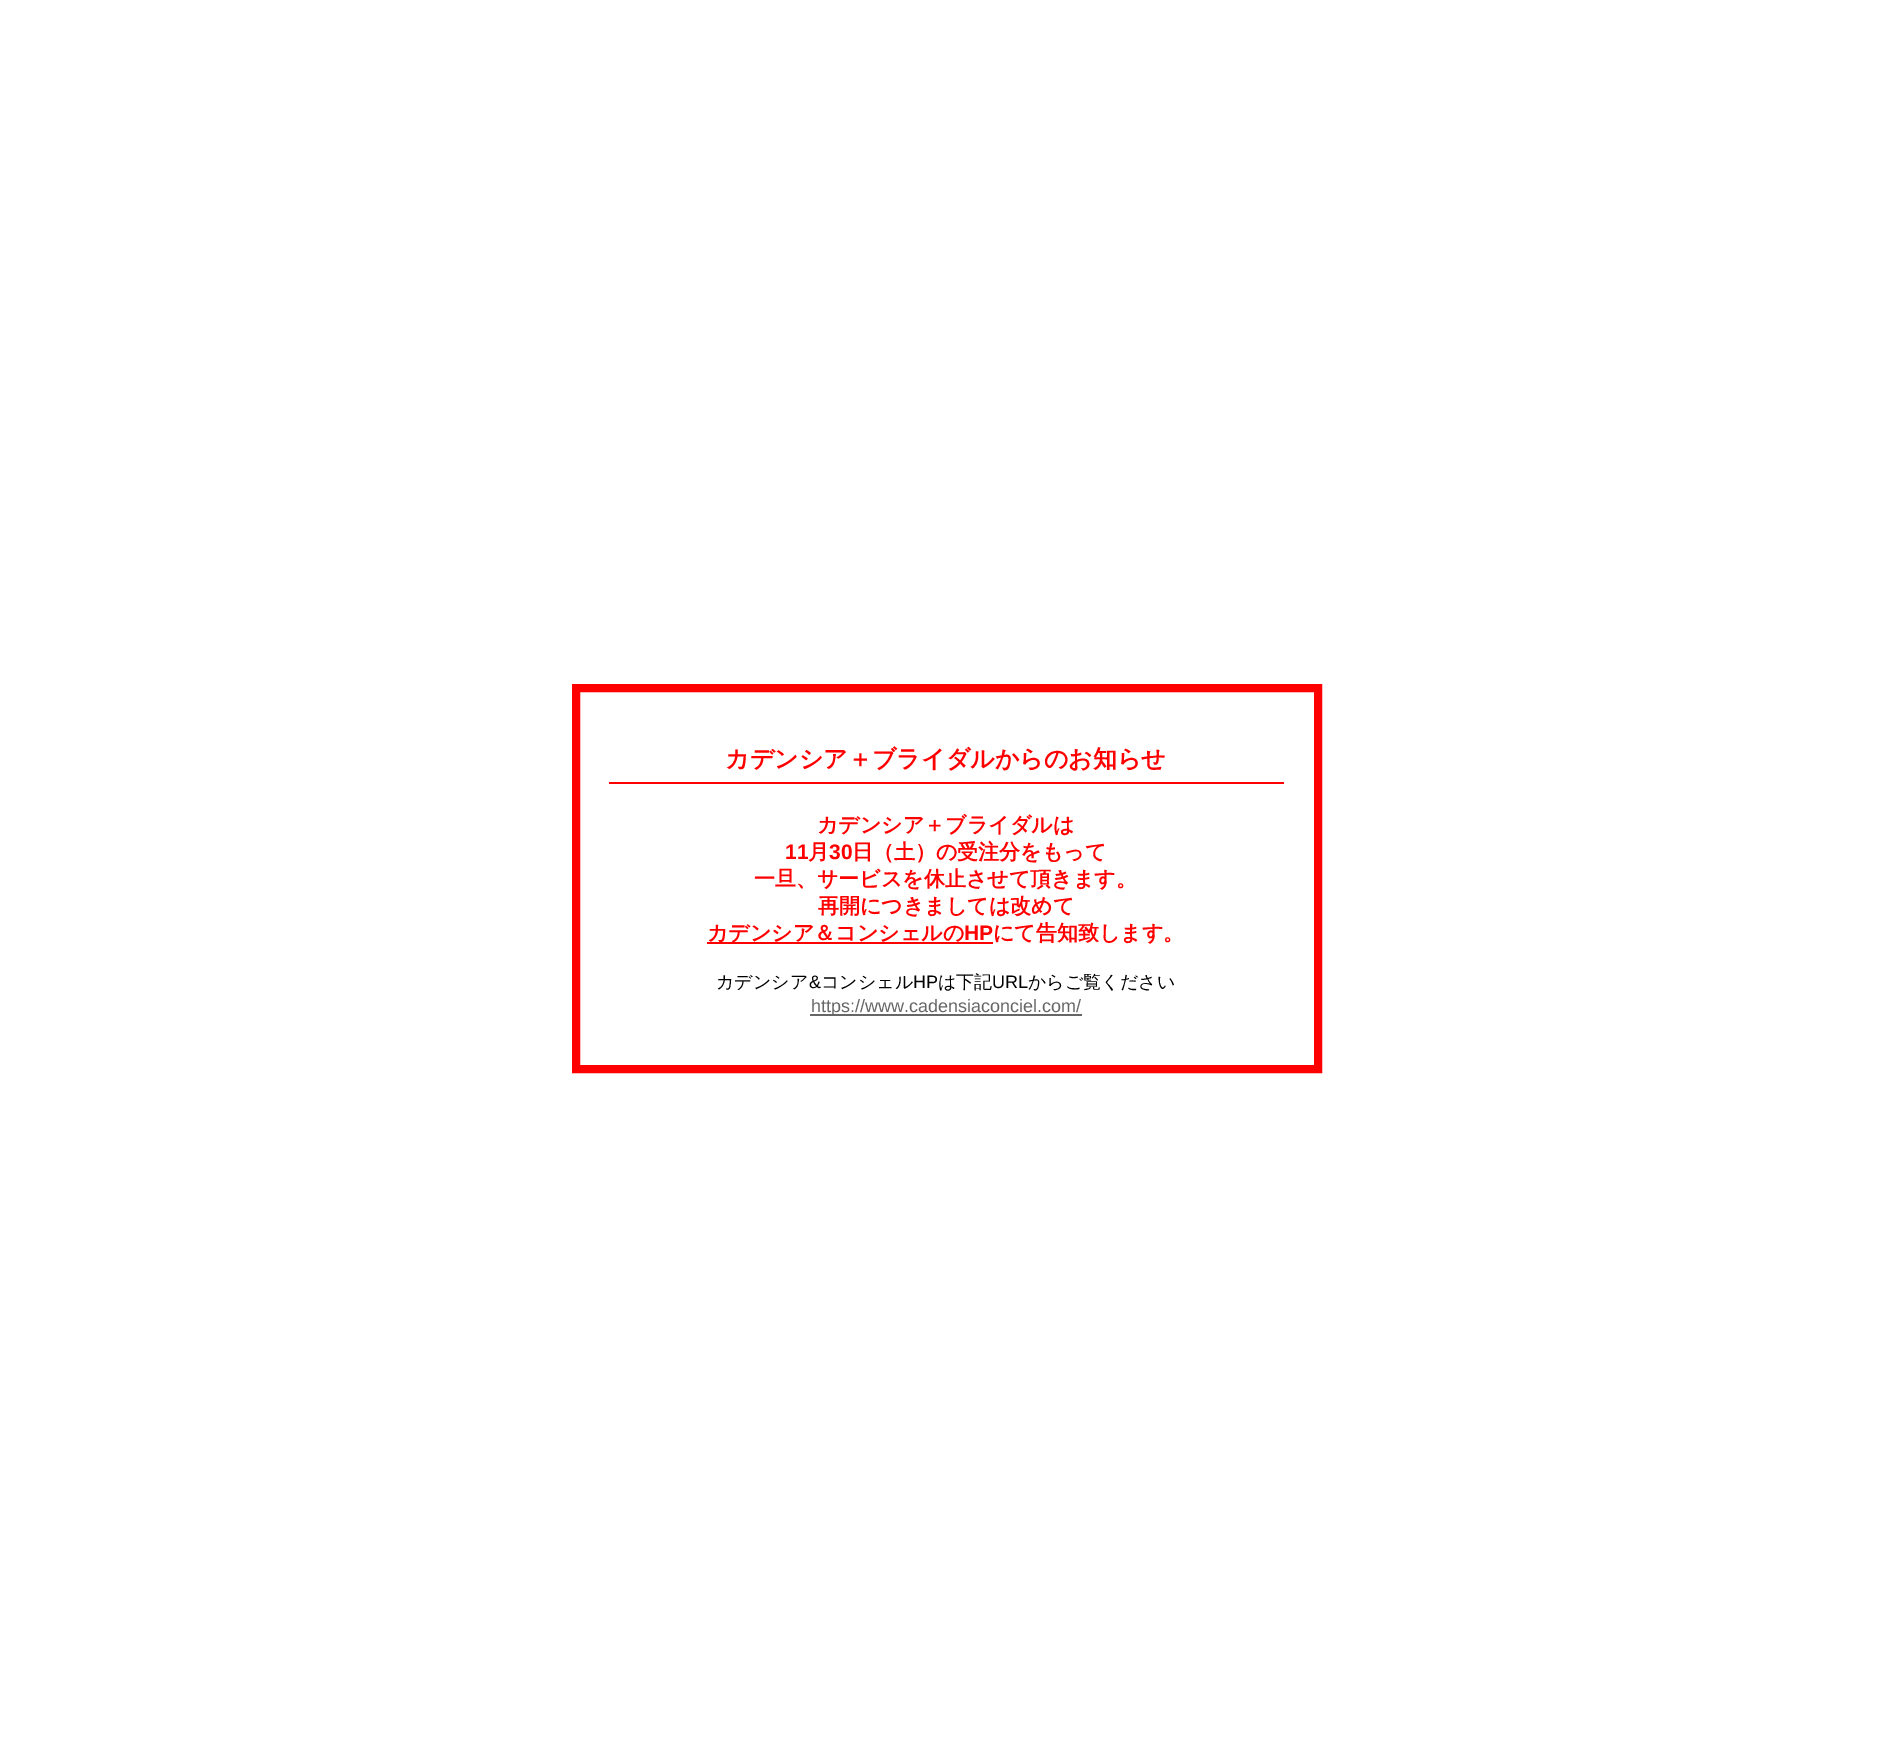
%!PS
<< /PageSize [1891 1754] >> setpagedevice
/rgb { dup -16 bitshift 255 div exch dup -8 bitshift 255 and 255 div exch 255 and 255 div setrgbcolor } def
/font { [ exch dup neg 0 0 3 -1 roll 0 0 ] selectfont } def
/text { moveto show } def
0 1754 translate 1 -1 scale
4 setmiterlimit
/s1 { /WenQuanYiZenHei-Bold 24 font 16#FF0000 rgb } def
/s2 { /WenQuanYiZenHei-Bold 21 font 16#FF0000 rgb } def
/s3 { /LiberationSans-Bold 21 font 16#FF0000 rgb } def
/s4 { /WenQuanYiZenHei-Medium 18 font 16#000000 rgb } def
/s5 { /LiberationSans-Regular 18 font 16#000000 rgb } def
/s6 { /LiberationSans-Regular 18 font 16#666666 rgb } def
16#FFFFFF rgb
0 0 1891 1754 rectfill
16#FF0000 rgb
8 setlinewidth
576 688 742 381 rectstroke
609 782 675 2 rectfill
s1
(カデンシア＋ブライダルからのお知らせ) 725 767 text
s2
(カデンシア＋ブライダルは) 817 832 text
s3
(11) 785 859 text
s2
(月) 808 859 text
s3
(30) 829 859 text
s2
(日（土）の受注分をもって) 852 859 text
(一旦、サービスを休止させて頂きます。) 754 886 text
(再開につきましては改めて) 818 913 text
707 942 286 2 rectfill
(カデンシア＆コンシェルの) 707 940 text
s3
(HP) 964 940 text
s2
(にて告知致します。) 993 940 text
s4
(カデンシア) 716 988 text
s5
(&) 809 988 text
s4
(コンシェル) 821 988 text
s5
(HP) 913 988 text
s4
(は下記) 938 988 text
s5
(URL) 992 988 text
s4
(からご覧ください) 1028 988 text
16#666666 rgb
810 1014 272 2 rectfill
s6
(https://www.cadensiaconciel.com/) 811 1012 text
showpage
